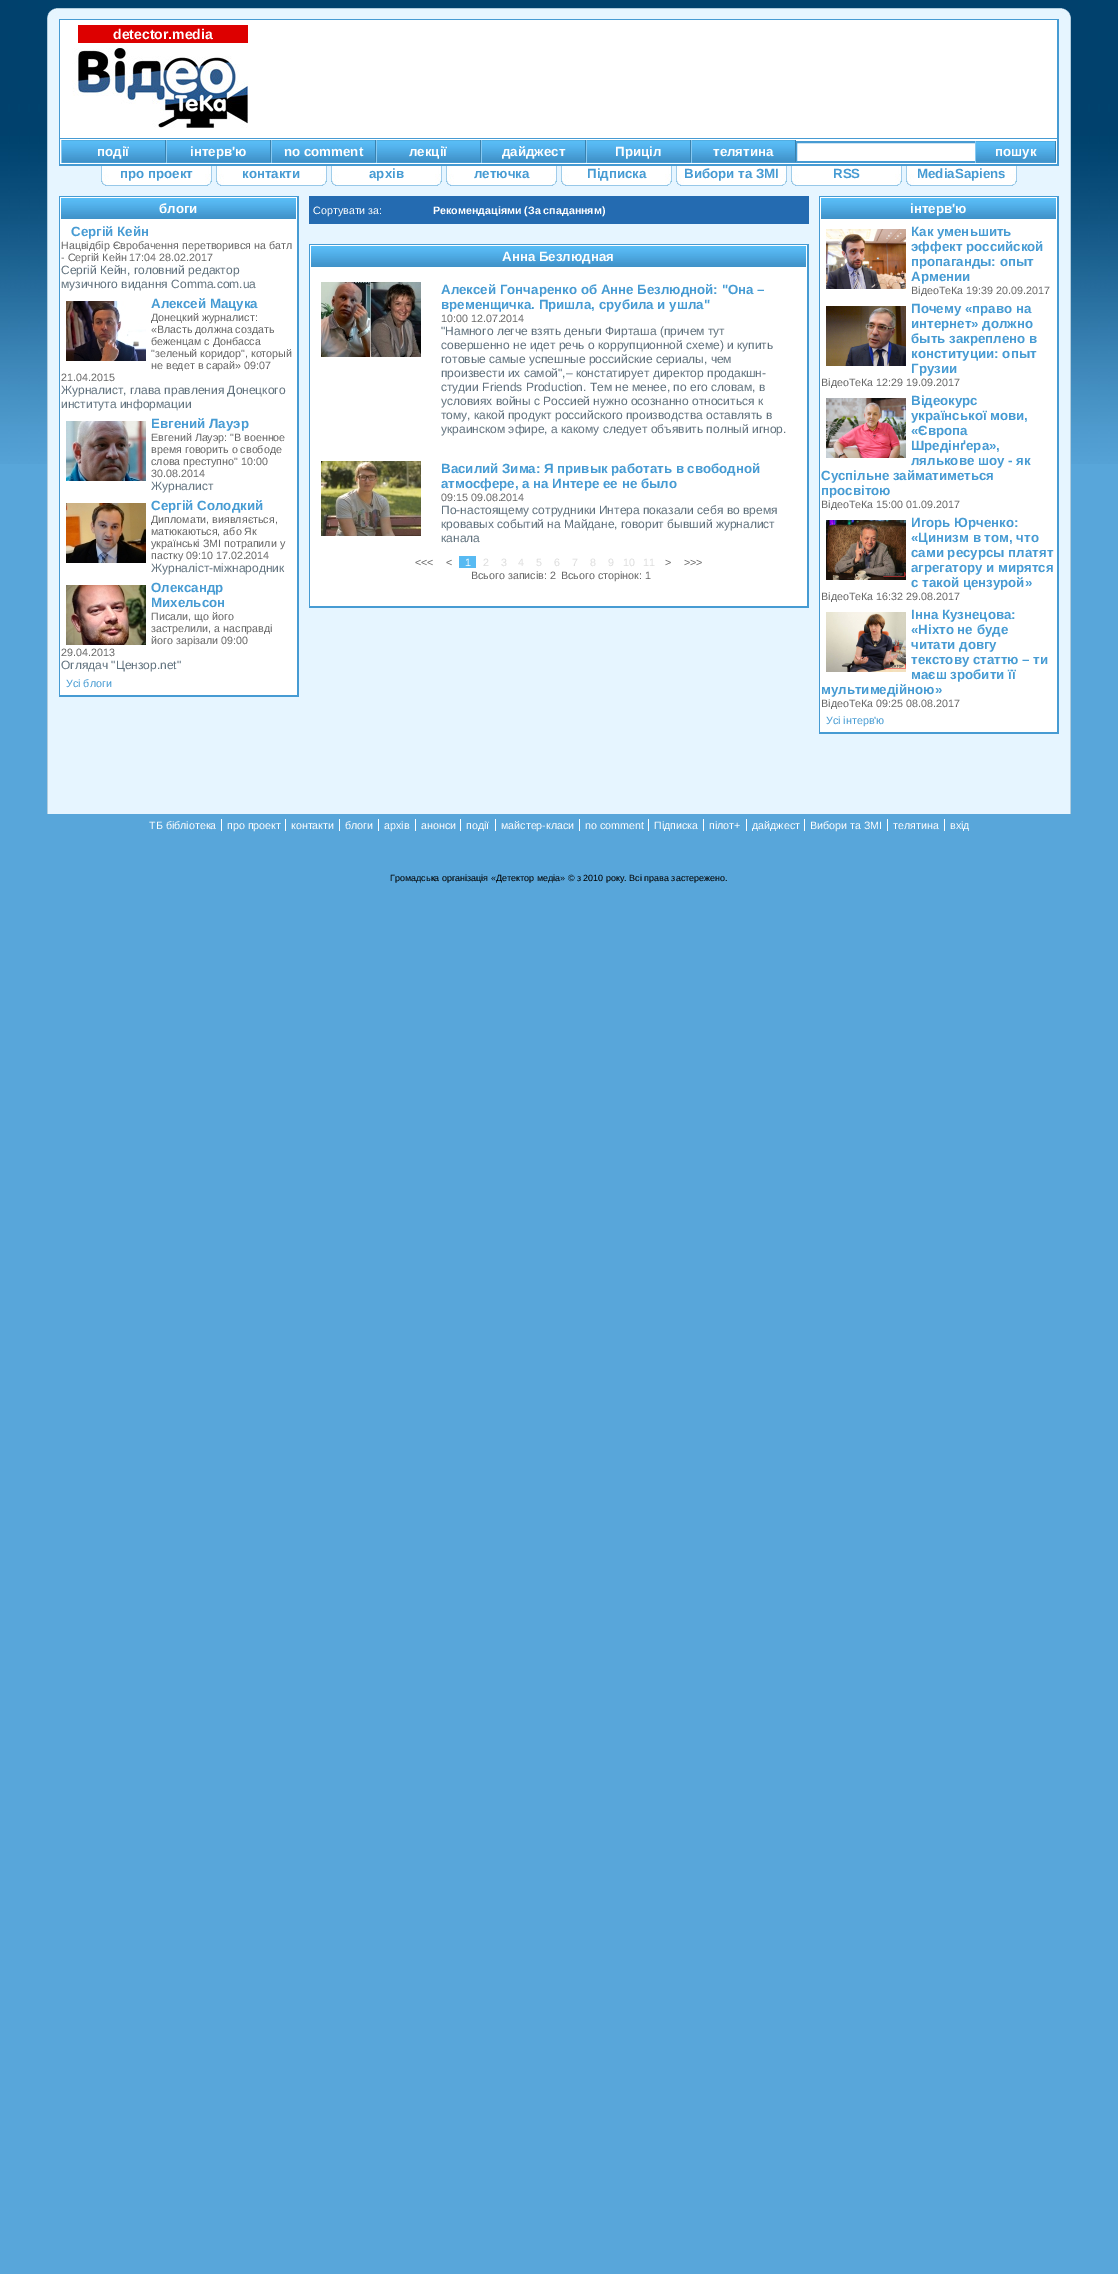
%!PS
<< /PageSize [1118 2274] >> setpagedevice
/rgb { dup -16 bitshift 255 div exch dup -8 bitshift 255 and 255 div exch 255 and 255 div setrgbcolor } def
/font { [ exch dup neg 0 0 3 -1 roll 0 0 ] selectfont } def
/text { moveto show } def
/picture { 5 dict begin { /h /w /y /x /name } { exch def } forall
  gsave x y translate w h scale
  w h 8 [w 0 0 h 0 0] name (r) file false 3 colorimage grestore end } def
0 2274 translate 1 -1 scale
4 setmiterlimit
/s1 { /LiberationSans-Bold 14 font 16#FFFFFF rgb } def
/s2 { /LiberationSans-Bold 13.3 font 16#FFFFFF rgb } def
/s3 { /LiberationSans-Bold 13.3 font 16#469BD3 rgb } def
/s4 { /LiberationSans-Regular 10.7 font 16#656565 rgb } def
/s5 { /LiberationSans-Regular 12 font 16#61727E rgb } def
/s6 { /LiberationSans-Regular 10.7 font 16#469BD3 rgb } def
/s7 { /LiberationSans-Regular 10.7 font 16#FFFFFF rgb } def
/s8 { /LiberationSans-Bold 10.7 font 16#FFFFFF rgb } def
/s9 { /LiberationSans-Regular 10.7 font 16#DDDDDD rgb } def
/s10 { /LiberationSans-Regular 9 font 16#000000 rgb } def
16#58A6DA rgb
0 0 1118 2274 rectfill
(pic1.raw) 0 0 1118 464 picture
(pic2.raw) 47 8 10 11 picture
16#E6F5FF rgb
57 9 1004 10 rectfill
16#B1CCDD rgb
57 8 1004 1 rectfill
(pic3.raw) 1061 8 10 11 picture
16#E6F5FF rgb
48 19 1022 795 rectfill
16#B1CCDD rgb
47 19 1 795 rectfill
1070 19 1 795 rectfill
16#FFFFFF rgb
60 20 997 118 rectfill
16#469BD3 rgb
59 19 1000 1 rectfill
1057 19 2 119 rectfill
59 19 1 119 rectfill
16#DD0000 rgb
78 25 170 18 rectfill
s1
(detector.media) 113 39 text
(pic4.raw) 72 48 176 80 picture
60 139 997 25 rectfill
16#469BD3 rgb
59 138 1000 1 rectfill
1057 138 2 28 rectfill
59 164 1000 2 rectfill
59 138 1 28 rectfill
(pic5.raw) 62 141 103 21 picture
16#51AEE3 rgb
61 140 735 1 rectfill
16#3A82AE rgb
165 140 1 23 rectfill
16#469BD3 rgb
61 162 105 1 rectfill
16#87C9F1 rgb
61 140 1 23 rectfill
s2
(події) 97 156 text
(pic5.raw) 167 141 103 21 picture
16#3A82AE rgb
270 140 1 23 rectfill
16#469BD3 rgb
166 162 105 1 rectfill
16#87C9F1 rgb
166 140 1 23 rectfill
s2
(інтерв'ю) 190 156 text
(pic5.raw) 272 141 103 21 picture
16#3A82AE rgb
375 140 1 23 rectfill
16#469BD3 rgb
271 162 105 1 rectfill
16#87C9F1 rgb
271 140 1 23 rectfill
s2
(no comment) 284 156 text
(pic5.raw) 377 141 103 21 picture
16#3A82AE rgb
480 140 1 23 rectfill
16#469BD3 rgb
376 162 105 1 rectfill
16#87C9F1 rgb
376 140 1 23 rectfill
s2
(лекції) 409 156 text
(pic5.raw) 482 141 103 21 picture
16#3A82AE rgb
585 140 1 23 rectfill
16#469BD3 rgb
481 162 105 1 rectfill
16#87C9F1 rgb
481 140 1 23 rectfill
s2
(дайджест) 502 156 text
(pic5.raw) 587 141 103 21 picture
16#3A82AE rgb
690 140 1 23 rectfill
16#469BD3 rgb
586 162 105 1 rectfill
16#87C9F1 rgb
586 140 1 23 rectfill
s2
(Приціл) 615 156 text
(pic5.raw) 692 141 103 21 picture
16#3A82AE rgb
795 140 1 23 rectfill
16#469BD3 rgb
691 162 105 1 rectfill
16#87C9F1 rgb
691 140 1 23 rectfill
s2
(телятина) 713 156 text
16#469BD3 rgb
796 141 179 22 rectfill
16#FFFFFF rgb
797 143 178 18 rectfill
16#469BD3 rgb
796.5 142.5 180 19 rectstroke
(pic6.raw) 976 142 79 20 picture
16#51AEE3 rgb
975 141 81 1 rectfill
16#3A82AE rgb
1055 141 1 22 rectfill
16#469BD3 rgb
975 162 81 1 rectfill
16#87C9F1 rgb
975 141 1 22 rectfill
s2
(пошук) 995 156 text
(pic7.raw) 101 166 111 20 picture
s3
(про проект) 120 178 text
(pic7.raw) 216 166 111 20 picture
(контакти) 242 178 text
(pic7.raw) 331 166 111 20 picture
(архів) 369 178 text
(pic7.raw) 446 166 111 20 picture
(летючка) 474 178 text
(pic7.raw) 561 166 111 20 picture
(Підписка) 587 178 text
(pic7.raw) 676 166 111 20 picture
(Вибори та ЗМІ) 684 178 text
(pic7.raw) 791 166 111 20 picture
(RSS) 833 178 text
(pic7.raw) 906 166 111 20 picture
(MediaSapiens) 917 178 text
16#FFFFFF rgb
60 197 237 498 rectfill
16#469BD3 rgb
59 196 240 1 rectfill
297 196 2 501 rectfill
59 695 240 2 rectfill
59 196 1 501 rectfill
(pic8.raw) 61 198 235 21 picture
s2
(блоги) 159 213 text
s3
(Сергій Кейн) 71 236 text
s4
(Нацвідбір Євробачення перетворився на батл) 61 249 text
(- Сергій Кейн 17:04 28.02.2017) 61 261 text
s5
(Сергій Кейн, головний редактор) 61 274 text
(музичного видання Comma.com.ua) 61 288 text
(pic9.raw) 66 301 80 60 picture
s3
(Алексей Мацука) 151 308 text
s4
(Донецкий журналист:) 151 321 text
(«Власть должна создать) 151 333 text
(беженцам с Донбасса) 151 345 text
("зеленый коридор", который) 151 357 text
(не ведет в сарай» 09:07) 151 369 text
(21.04.2015) 61 381 text
s5
(Журналист, глава правления Донецкого) 61 394 text
(института информации) 61 408 text
(pic10.raw) 66 421 80 60 picture
s3
(Евгений Лауэр) 151 428 text
s4
(Евгений Лауэр: "В военное) 151 441 text
(время говорить о свободе) 151 453 text
(слова преступно" 10:00) 151 465 text
(30.08.2014) 151 477 text
s5
(Журналист) 151 490 text
(pic11.raw) 66 503 80 60 picture
s3
(Сергій Солодкий) 151 510 text
s4
(Дипломати, виявляється,) 151 523 text
(матюкаються, або Як) 151 535 text
(українські ЗМІ потрапили у) 151 547 text
(пастку 09:10 17.02.2014) 151 559 text
s5
(Журналіст-міжнародник) 151 572 text
(pic12.raw) 66 585 80 60 picture
s3
(Олександр) 151 592 text
(Михельсон) 151 607 text
s4
(Писали, що його) 151 620 text
(застрелили, а насправді) 151 632 text
(його зарізали 09:00) 151 644 text
(29.04.2013) 61 656 text
s5
(Оглядач "Цензор.net") 61 669 text
s6
(Усі блоги) 66 687 text
16#246BB1 rgb
309 196 500 28 rectfill
s7
(Сортувати за:) 313 214 text
s8
(Рекомендаціями \(За спаданням\)) 433 214 text
310 245 497 361 rectfill
16#469BD3 rgb
309 244 500 1 rectfill
807 244 2 364 rectfill
309 606 500 2 rectfill
309 244 1 364 rectfill
(pic13.raw) 311 246 495 21 picture
s2
(Анна Безлюдная) 502 261 text
(pic14.raw) 321 282 100 75 picture
s3
(Алексей Гончаренко об Анне Безлюдной: "Она –) 441 294 text
(временщичка. Пришла, срубила и ушла") 441 309 text
s4
(10:00 12.07.2014) 441 322 text
s5
("Намного легче взять деньги Фирташа \(причем тут) 441 335 text
(совершенно не идет речь о коррупционной схеме\) и купить) 441 349 text
(готовые самые успешные российские сериалы, чем) 441 363 text
(произвести их самой",– констатирует директор продакшн-) 441 377 text
(студии Friends Production. Тем не менее, по его словам, в) 441 391 text
(условиях войны с Россией нужно осознанно относиться к) 441 405 text
(тому, какой продукт российского производства оставлять в) 441 419 text
(украинском эфире, а какому следует объявить полный игнор.) 441 433 text
(pic15.raw) 321 461 100 75 picture
s3
(Василий Зима: Я привык работать в свободной) 441 473 text
(атмосфере, а на Интере ее не было) 441 488 text
s4
(09:15 09.08.2014) 441 501 text
s5
(По-настоящему сотрудники Интера показали себя во время) 441 514 text
(кровавых событий на Майдане, говорит бывший журналист) 441 528 text
(канала) 441 542 text
s4
(<<<) 415 566 text
(<) 446 566 text
16#58BAF2 rgb
459 556 17 12 rectfill
s7
(1) 465 566 text
s9
(2) 483 566 text
(3) 501 566 text
(4) 518 566 text
(5) 536 566 text
(6) 554 566 text
(7) 572 566 text
(8) 590 566 text
(9) 608 566 text
(10) 623 566 text
(11) 643 566 text
s4
(>) 665 566 text
(>>>) 684 566 text
(Всього записів: 2) 471 579 text
(Всього сторінок: 1) 561 579 text
16#FFFFFF rgb
820 197 237 535 rectfill
16#469BD3 rgb
819 196 240 1 rectfill
1057 196 2 538 rectfill
819 732 240 2 rectfill
819 196 1 538 rectfill
(pic8.raw) 821 198 235 21 picture
s2
(інтерв'ю) 910 213 text
(pic16.raw) 826 229 80 60 picture
s3
(Как уменьшить) 911 236 text
(эффект российской) 911 251 text
(пропаганды: опыт) 911 266 text
(Армении) 911 281 text
s4
(ВідеоТеКа 19:39 20.09.2017) 911 294 text
(pic17.raw) 826 306 80 60 picture
s3
(Почему «право на) 911 313 text
(интернет» должно) 911 328 text
(быть закреплено в) 911 343 text
(конституции: опыт) 911 358 text
(Грузии) 911 373 text
s4
(ВідеоТеКа 12:29 19.09.2017) 821 386 text
s3
(Відеокурс) 911 405 text
(української мови,) 911 420 text
(«Європа) 911 435 text
(Шредінґера»,) 911 450 text
(лялькове шоу - як) 911 465 text
(Суспільне займатиметься) 821 480 text
(просвітою) 821 495 text
(pic18.raw) 826 398 80 60 picture
s4
(ВідеоТеКа 15:00 01.09.2017) 821 508 text
(pic19.raw) 826 520 80 60 picture
s3
(Игорь Юрченко:) 911 527 text
(«Цинизм в том, что) 911 542 text
(сами ресурсы платят) 911 557 text
(агрегатору и мирятся) 911 572 text
(с такой цензурой») 911 587 text
s4
(ВідеоТеКа 16:32 29.08.2017) 821 600 text
s3
(Інна Кузнецова:) 911 619 text
(«Ніхто не буде) 911 634 text
(читати довгу) 911 649 text
(текстову статтю – ти) 911 664 text
(маєш зробити її) 911 679 text
(мультимедійною») 821 694 text
(pic20.raw) 826 612 80 60 picture
s4
(ВідеоТеКа 09:25 08.08.2017) 821 707 text
s6
(Усі інтерв'ю) 826 724 text
s7
(ТБ бібліотека) 149 829 text
221 819 1 12 rectfill
(про проект) 227 829 text
285 819 1 12 rectfill
(контакти) 291 829 text
339 819 1 12 rectfill
(блоги) 345 829 text
378 819 1 12 rectfill
(архів) 384 829 text
415 819 1 12 rectfill
(анонси) 421 829 text
460 819 1 12 rectfill
(події) 466 829 text
495 819 1 12 rectfill
(майстер-класи) 501 829 text
579 819 1 12 rectfill
(no comment) 585 829 text
648 819 1 12 rectfill
(Підписка) 654 829 text
703 819 1 12 rectfill
(пілот+) 709 829 text
746 819 1 12 rectfill
(дайджест) 752 829 text
804 819 1 12 rectfill
(Вибори та ЗМІ) 810 829 text
887 819 1 12 rectfill
(телятина) 893 829 text
944 819 1 12 rectfill
(вхід) 950 829 text
s10
(Громадська організація «Детектор медіа» © з 2010 року. Всі права застережено.) 390 881 text
showpage
